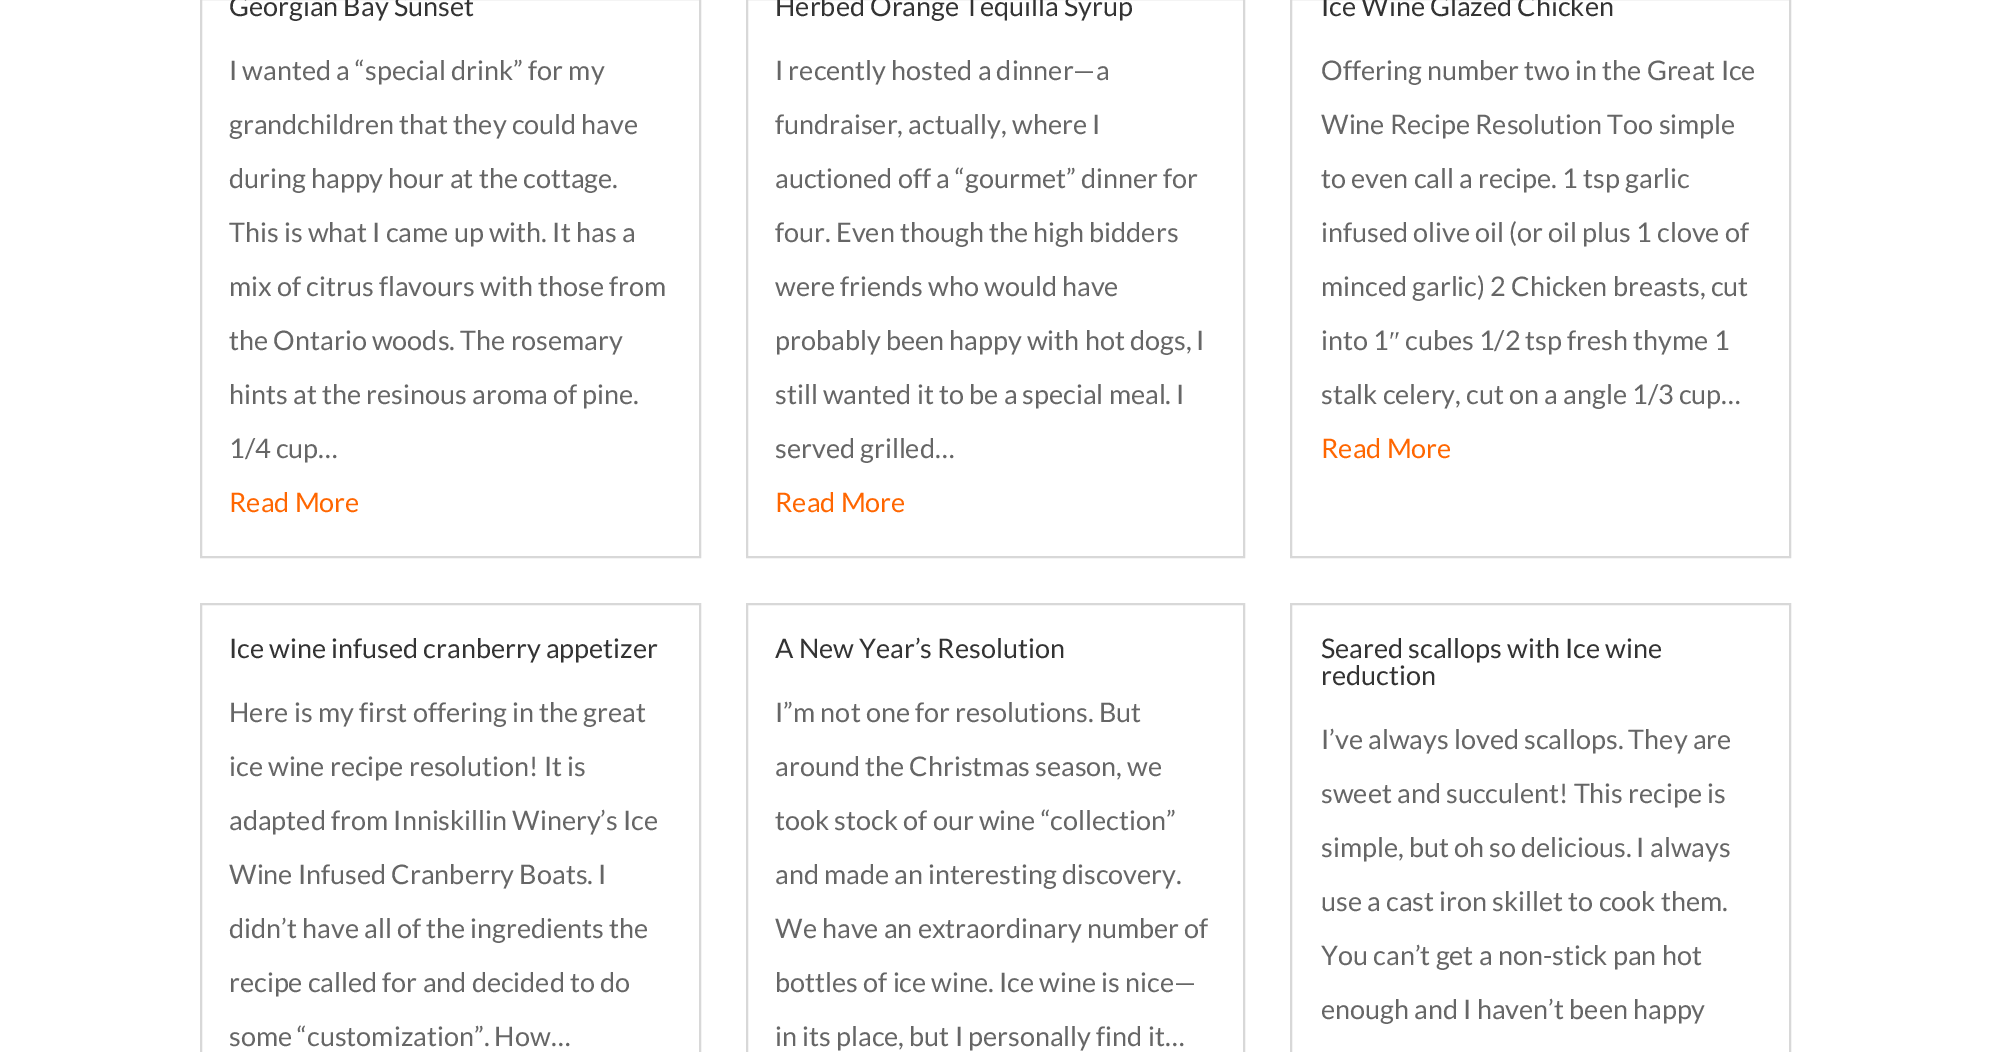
%!PS
<< /PageSize [1990 1052] >> setpagedevice
/rgb { dup -16 bitshift 255 div exch dup -8 bitshift 255 and 255 div exch 255 and 255 div setrgbcolor } def
/font { [ exch dup neg 0 0 3 -1 roll 0 0 ] selectfont } def
/text { moveto show } def
0 1052 translate 1 -1 scale
4 setmiterlimit
/s1 { /Lato-Regular 27 font 16#333333 rgb } def
/s2 { /Lato-Regular 27 font 16#666666 rgb } def
/s3 { /Lato-Regular 27 font 16#FF6600 rgb } def
/s4 { /LiberationSerif-Regular 27 font 16#666666 rgb } def
16#FFFFFF rgb
0 0 1990 1052 rectfill
16#D8D8D8 rgb
2 setlinewidth
201 -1 499 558 rectstroke
s1
(Georgian Bay Sunset) 229 16 text
s2
(I wanted a “special drink” for my) 229 80 text
(grandchildren that they could have) 229 134 text
(during happy hour at the cottage.) 229 188 text
(This is what I came up with. It has a) 229 242 text
(mix of citrus flavours with those from) 229 296 text
(the Ontario woods. The rosemary) 229 350 text
(hints at the resinous aroma of pine.) 229 404 text
(1/4 cup…) 229 458 text
s3
(Read More) 229 512 text
16#D8D8D8 rgb
747 -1 497 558 rectstroke
s1
(Herbed Orange Tequilla Syrup) 775 16 text
s2
(I recently hosted a dinner—a) 775 80 text
(fundraiser, actually, where I) 775 134 text
(auctioned off a “gourmet” dinner for) 775 188 text
(four. Even though the high bidders) 775 242 text
(were friends who would have) 775 296 text
(probably been happy with hot dogs, I) 775 350 text
(still wanted it to be a special meal. I) 775 404 text
(served grilled…) 775 458 text
s3
(Read More) 775 512 text
16#D8D8D8 rgb
1291 -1 499 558 rectstroke
s1
(Ice Wine Glazed Chicken) 1321 16 text
s2
(Offering number two in the Great Ice) 1321 80 text
(Wine Recipe Resolution Too simple) 1321 134 text
(to even call a recipe. 1 tsp garlic) 1321 188 text
(infused olive oil \(or oil plus 1 clove of) 1321 242 text
(minced garlic\) 2 Chicken breasts, cut) 1321 296 text
(into 1) 1321 350 text
s4
(″) 1389 350 text
s2
(cubes 1/2 tsp fresh thyme 1) 1405 350 text
(stalk celery, cut on a angle 1/3 cup…) 1321 404 text
s3
(Read More) 1321 458 text
16#D8D8D8 rgb
201 604 499 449 rectstroke
s1
(Ice wine infused cranberry appetizer) 229 658 text
s2
(Here is my first offering in the great) 229 722 text
(ice wine recipe resolution! It is) 229 776 text
(adapted from Inniskillin Winery’s Ice) 229 830 text
(Wine Infused Cranberry Boats. I) 229 884 text
(didn’t have all of the ingredients the) 229 938 text
(recipe called for and decided to do) 229 992 text
(some “customization”. How…) 229 1046 text
16#D8D8D8 rgb
747 604 497 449 rectstroke
s1
(A New Year’s Resolution) 775 658 text
s2
(I”m not one for resolutions. But) 775 722 text
(around the Christmas season, we) 775 776 text
(took stock of our wine “collection”) 775 830 text
(and made an interesting discovery.) 775 884 text
(We have an extraordinary number of) 775 938 text
(bottles of ice wine. Ice wine is nice—) 775 992 text
(in its place, but I personally find it…) 775 1046 text
16#D8D8D8 rgb
1291 604 499 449 rectstroke
s1
(Seared scallops with Ice wine) 1321 658 text
(reduction) 1321 685 text
s2
(I’ve always loved scallops. They are) 1321 749 text
(sweet and succulent! This recipe is) 1321 803 text
(simple, but oh so delicious. I always) 1321 857 text
(use a cast iron skillet to cook them.) 1321 911 text
(You can’t get a non-stick pan hot) 1321 965 text
(enough and I haven’t been happy) 1321 1019 text
showpage
